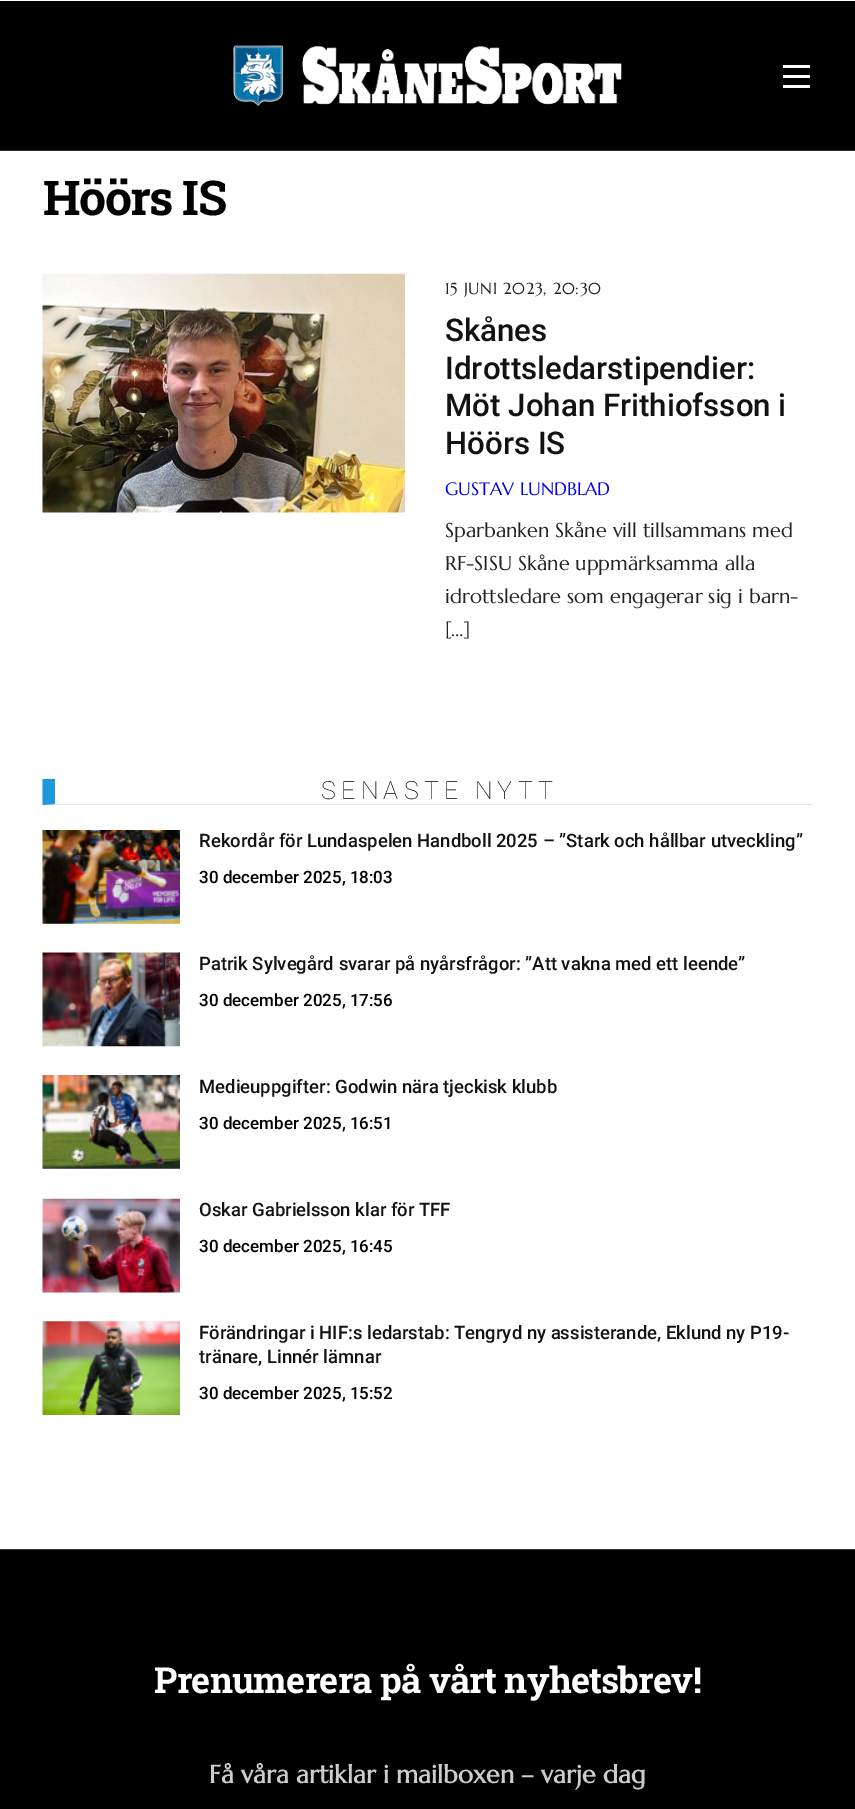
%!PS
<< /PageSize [855 1809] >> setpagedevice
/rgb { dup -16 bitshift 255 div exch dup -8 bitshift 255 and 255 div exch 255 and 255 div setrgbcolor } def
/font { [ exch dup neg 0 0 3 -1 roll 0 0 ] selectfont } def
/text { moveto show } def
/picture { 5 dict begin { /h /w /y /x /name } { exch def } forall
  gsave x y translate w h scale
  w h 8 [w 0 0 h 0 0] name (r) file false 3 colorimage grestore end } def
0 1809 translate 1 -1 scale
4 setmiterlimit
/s1 { /Roboto-Medium 31.25 font 16#121212 rgb } def
/s2 { /Marcellus-Regular 18 font 16#0000EE rgb } def
/s3 { /Marcellus-Regular 20 font 16#222222 rgb } def
/s4 { /Roboto-Medium 18.5 font 16#121212 rgb } def
/s5 { /Roboto-Medium 17 font 16#000000 rgb } def
/s6 { /Marcellus-Bold 25 font 16#CCCCCC rgb } def
16#FFFFFF rgb
0 0 855 1809 rectfill
16#000000 rgb
0 1 855 149 rectfill
16#363636 rgb
0 150 855 1 rectfill
(pic1.raw) 233 45 389 61 picture
16#FFFFFF rgb
783 85 27 3 rectfill
783 65 27 3 rectfill
783 75 27 3 rectfill
/RobotoSlab-Bold 48 font
16#000000 rgb
43 215 moveto -1.5 0 (Höörs IS) ashow
(pic2.raw) 42 273 363 240 picture
/Marcellus-Regular 16 font
16#222222 rgb
445 294 moveto 0.6 0 (15 JUNI 2023, 20:30) ashow
s1
(Skånes) 445 341 text
(Idrottsledarstipendier:) 445 379 text
(Möt Johan Frithiofsson i) 445 416 text
(Höörs IS) 445 454 text
s2
(GUSTAV LUNDBLAD) 445 495 text
s3
(Sparbanken Skåne vill tillsammans med) 445 537 text
(RF-SISU Skåne uppmärksamma alla) 445 570 text
(idrottsledare som engagerar sig i barn-) 445 603 text
([…]) 445 636 text
16#E5E5E5 rgb
812 805 moveto 42 805 lineto 55 804 lineto 812 804 lineto closepath fill
16#1E99E0 rgb
42.5 805 moveto 42.5 779 lineto 55 779 lineto 55 804 lineto closepath fill
/Roboto-Thin 25 font
16#000000 rgb
321 799 moveto 5.25 0 (SENASTE NYTT) ashow
(pic3.raw) 42 830 138 94 picture
s4
(Rekordår för Lundaspelen Handboll 2025 – ”Stark och hållbar utveckling”) 199 847 text
s5
(30 december 2025, 18:03) 199 883 text
(pic4.raw) 42 952 138 95 picture
s4
(Patrik Sylvegård svarar på nyårsfrågor: ”Att vakna med ett leende”) 199 970 text
s5
(30 december 2025, 17:56) 199 1006 text
(pic5.raw) 42 1075 138 94 picture
s4
(Medieuppgifter: Godwin nära tjeckisk klubb) 199 1093 text
s5
(30 december 2025, 16:51) 199 1129 text
(pic6.raw) 42 1198 138 95 picture
s4
(Oskar Gabrielsson klar för TFF) 199 1216 text
s5
(30 december 2025, 16:45) 199 1252 text
(pic7.raw) 42 1321 138 94 picture
s4
(Förändringar i HIF:s ledarstab: Tengryd ny assisterande, Eklund ny P19-) 199 1339 text
(tränare, Linnér lämnar) 199 1363 text
s5
(30 december 2025, 15:52) 199 1399 text
0 1550 855 259 rectfill
16#363636 rgb
0 1549 855 1 rectfill
/RobotoSlab-Bold 36 font
16#FFFFFF rgb
154 1693 moveto -0.75 0 (Prenumerera på vårt nyhetsbrev!) ashow
s6
(Få våra artiklar i mailboxen – varje dag) 209 1783 text
showpage
